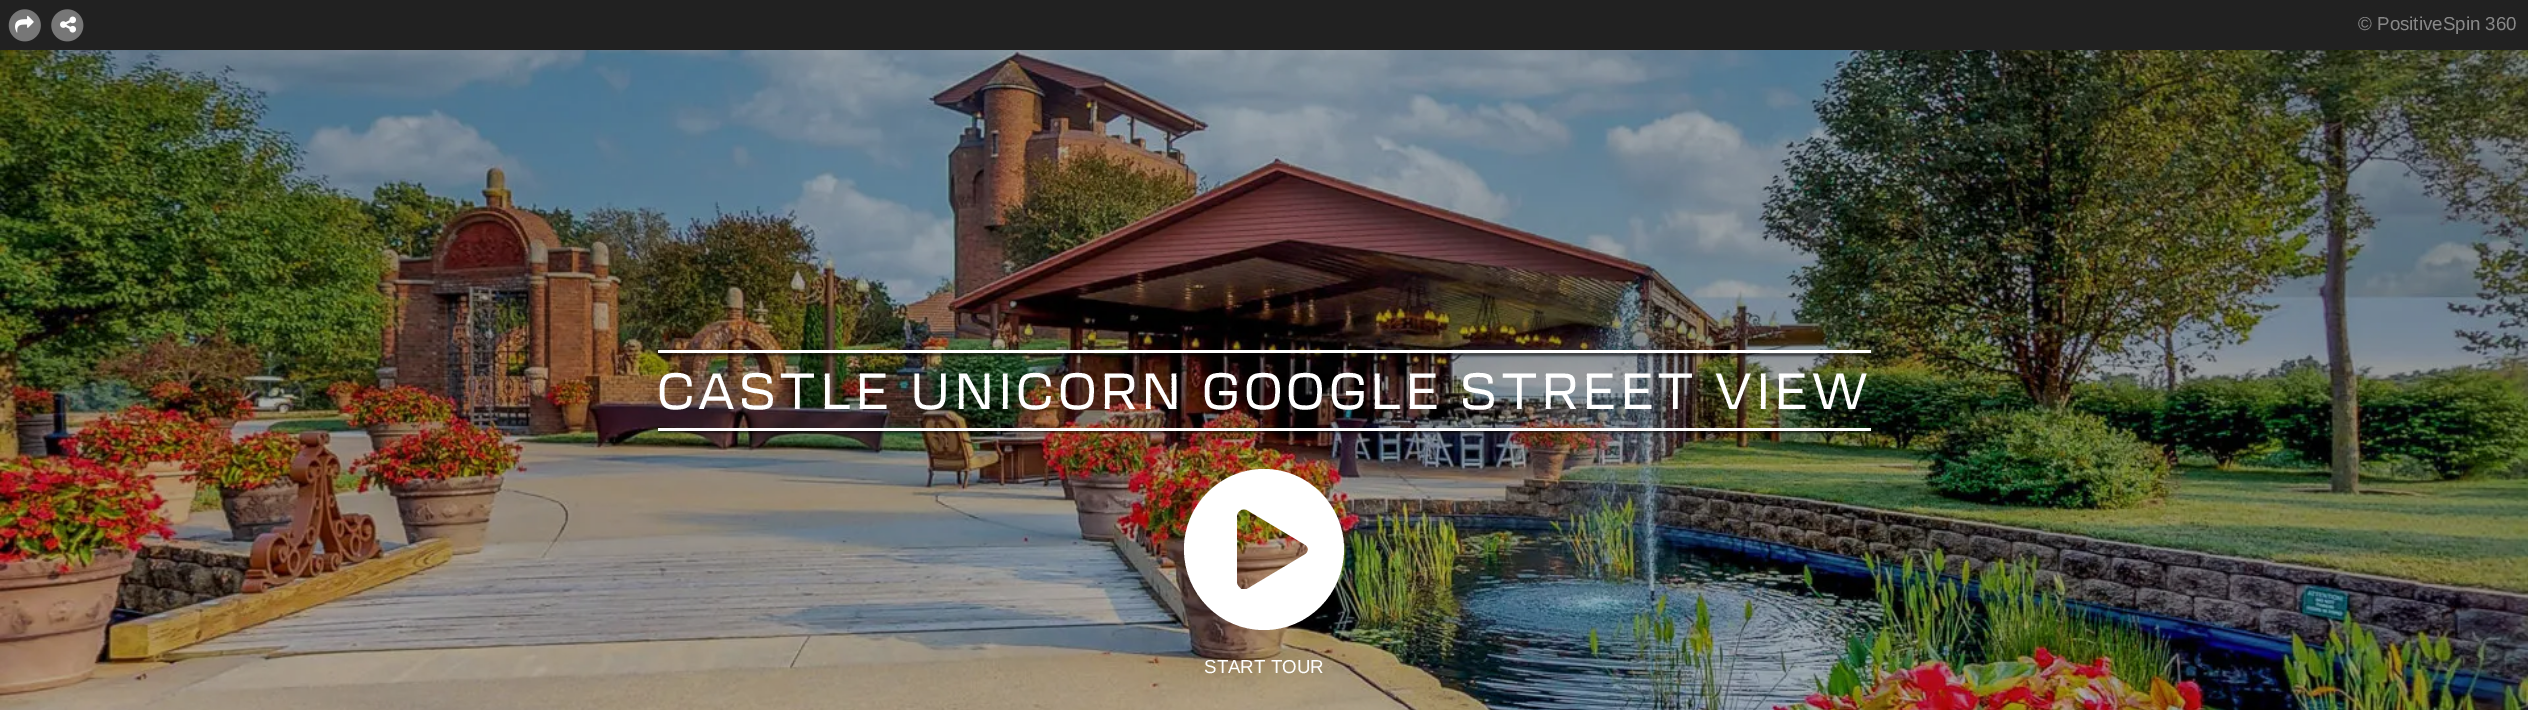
%!PS
<< /PageSize [2528 710] /PageUsesTransparency true >> setpagedevice
/rgb { dup -16 bitshift 255 div exch dup -8 bitshift 255 and 255 div exch 255 and 255 div setrgbcolor } def
/font { [ exch dup neg 0 0 3 -1 roll 0 0 ] selectfont } def
/text { moveto show } def
/alpha { dup .setfillconstantalpha .setstrokeconstantalpha } def
/roundrect { 5 dict begin { /r /h /w /y /x } { exch def } forall
  x r add y moveto x w add y 2 copy h add r arct x w add y h add x 1 index r arct
  x y h add x y r arct x y 2 copy exch w add exch r arct closepath end } def
/shadow { 12 dict begin { /a /b /q /h /w /y /x } { exch def } forall gsave /was 0 def
  9 -2 -9 { dup b mul 4 div /e exch def 1 sub .425 mul 2.718 exch exp 1 add a .99 .min exch div /now exch def
    1 1 now sub 1 was sub div sub alpha /was now def
    w h .min e 2 mul add 0 gt { x e sub y e sub w e 2 mul add h e 2 mul add
      q e add b .6 mul add w h .min 2 div e add .min 0 .max roundrect fill } if } for grestore end } def
/picture { 5 dict begin { /h /w /y /x /name } { exch def } forall
  gsave x y translate w h scale
  w h 8 [w 0 0 h 0 0] name (r) file false 3 colorimage grestore end } def
0 .pushpdf14devicefilter
0 710 translate 1 -1 scale
4 setmiterlimit
/s1 { /LiberationSans-Regular 18.75 font 16#888888 rgb } def
/s2 { /LiberationSans-Regular 18.75 font 16#FFFFFF rgb } def
16#212121 rgb
0 0 2528 710 rectfill
(pic1.raw) 8 9 33 33 picture
(pic2.raw) 15 15 19 18 picture
(pic3.raw) 51 9 33 33 picture
(pic4.raw) 60 16 16 17 picture
s1
(© PositiveSpin 360) 2358 30 text
(pic5.raw) 0 50 2528 660 picture
16#000000 rgb
659 353 1214 3 0 1 0.6 shadow
16#FFFFFF rgb
658 350 1213 3 rectfill
/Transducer-Regular 50 font
657 409 moveto 3.75 0 (CASTLE UNICORN GOOGLE STREET VIEW) ashow
16#000000 rgb
659 430 1214 3 0 1 0.6 shadow
16#FFFFFF rgb
658 428 1213 3 rectfill
1264 469 moveto 1220 469 1184 505 1184 549 curveto 1184 594 1220 630 1264 630 curveto 1308 630 1344 594 1344 549 curveto 1344 505 1308 469 1264 469 curveto closepath 1304 555 moveto 1247 589 lineto 1244 589 lineto 1241 589 lineto 1239 587 1237 585 1237 583 curveto 1237 516 lineto 1237 513 1239 511 1241 510 curveto 1243 509 1245 509 1247 510 curveto 1304 544 lineto 1306 545 1308 547 1308 549 curveto 1308 552 1306 554 1304 555 curveto closepath fill
s2
(START TOUR) 1204 673 text
.poppdf14devicefilter showpage
